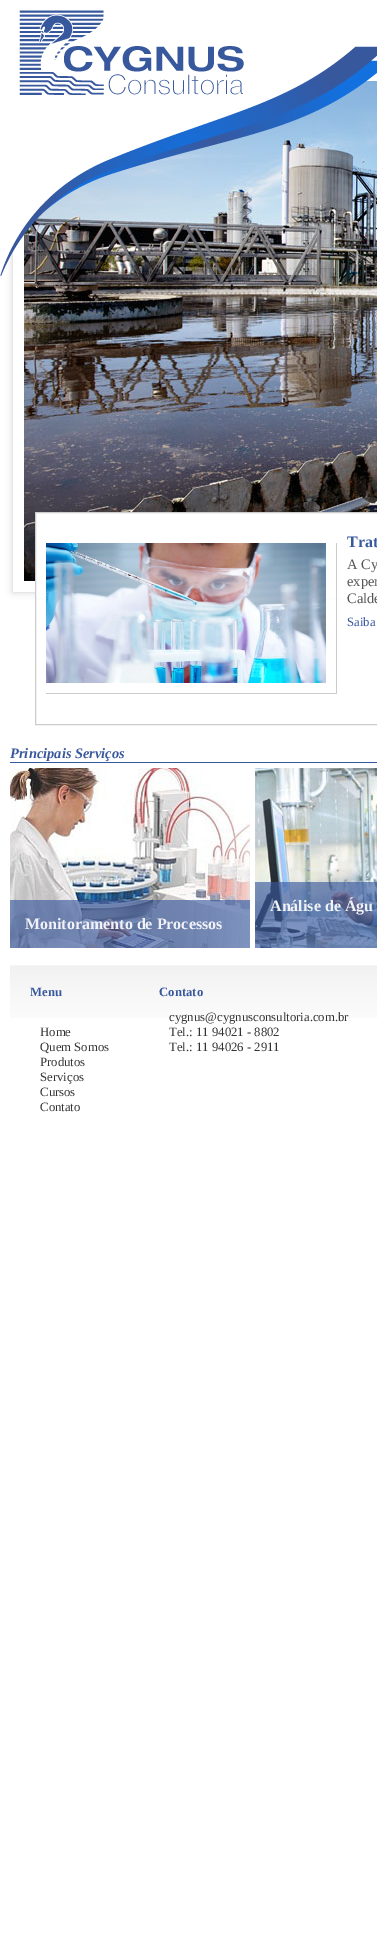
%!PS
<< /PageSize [377 1934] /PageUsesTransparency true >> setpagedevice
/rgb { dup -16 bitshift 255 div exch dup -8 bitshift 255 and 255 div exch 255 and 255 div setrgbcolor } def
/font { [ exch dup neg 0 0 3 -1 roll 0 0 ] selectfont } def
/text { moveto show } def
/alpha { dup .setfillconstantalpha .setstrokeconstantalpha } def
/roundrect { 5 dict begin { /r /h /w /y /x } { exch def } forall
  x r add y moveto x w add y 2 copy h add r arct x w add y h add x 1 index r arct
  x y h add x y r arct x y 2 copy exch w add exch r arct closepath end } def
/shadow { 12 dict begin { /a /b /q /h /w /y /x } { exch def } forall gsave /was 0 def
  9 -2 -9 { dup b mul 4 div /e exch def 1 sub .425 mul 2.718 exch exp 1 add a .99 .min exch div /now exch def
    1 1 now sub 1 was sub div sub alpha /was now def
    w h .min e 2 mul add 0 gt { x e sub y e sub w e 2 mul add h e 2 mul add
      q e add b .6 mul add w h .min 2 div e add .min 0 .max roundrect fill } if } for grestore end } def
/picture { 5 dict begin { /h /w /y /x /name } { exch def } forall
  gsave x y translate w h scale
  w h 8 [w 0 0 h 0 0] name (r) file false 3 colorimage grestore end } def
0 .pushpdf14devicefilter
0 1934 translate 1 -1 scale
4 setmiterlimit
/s1 { /LiberationSerif-Bold 16 font 16#38589E rgb } def
/s2 { /LiberationSerif-Regular 14.5 font 16#555555 rgb } def
/s3 { /LiberationSerif-Regular 12.75 font 16#38589E rgb } def
/s4 { /LiberationSerif-BoldItalic 14.5 font 16#38589E rgb } def
/s5 { /LiberationSerif-Bold 16 font 16#F1F2F7 rgb } def
/s6 { /LiberationSerif-Bold 12.75 font 16#38589E rgb } def
/s7 { /LiberationSerif-Regular 12.75 font 16#333333 rgb } def
16#FFFFFF rgb
0 0 377 1934 rectfill
gsave
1 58 moveto 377 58 lineto 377 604 lineto 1 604 lineto closepath 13 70 moveto 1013 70 lineto 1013 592 lineto 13 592 lineto closepath eoclip newpath
16#CCCCCC rgb
13 70 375 522 0 3.5 1 shadow
grestore
(pic2.raw) 24 81 353 500 picture
(pic1.raw) 0 10 377 266 picture
36 513 341 85 rectfill
16#CCCCCC rgb
35.5 512.5 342 212 rectstroke
336 543 1 151 rectfill
46 693 291 1 rectfill
(pic3.raw) 46 543 280 140 picture
s1
(Trat) 347 547 text
s2
(A Cy) 347 569 text
(exper) 347 586 text
(Calde) 347 603 text
s3
(Saiba) 347 626 text
10 762 367 1 rectfill
s4
(Principais Serviços) 10 758 text
(pic4.raw) 255 768 122 180 picture
0.63 alpha
255 882 122 66 rectfill
1 alpha
s5
(Análise de Águ) 270 911 text
(pic5.raw) 10 768 240 180 picture
0.63 alpha
16#38589E rgb
10 900 240 48 rectfill
1 alpha
s5
(Monitoramento de Processos) 25 929 text
(pic6.raw) 10 965 367 53 picture
s6
(Menu) 30 996 text
s7
(Home) 40 1036 text
(Quem Somos) 40 1051 text
(Produtos) 40 1066 text
(Serviços) 40 1081 text
(Cursos) 40 1096 text
(Contato) 40 1111 text
s6
(Contato) 159 996 text
s7
(cygnus@cygnusconsultoria.com.br) 169 1021 text
(Tel.: 11 94021 - 8802) 169 1036 text
(Tel.: 11 94026 - 2911) 169 1051 text
.poppdf14devicefilter showpage
